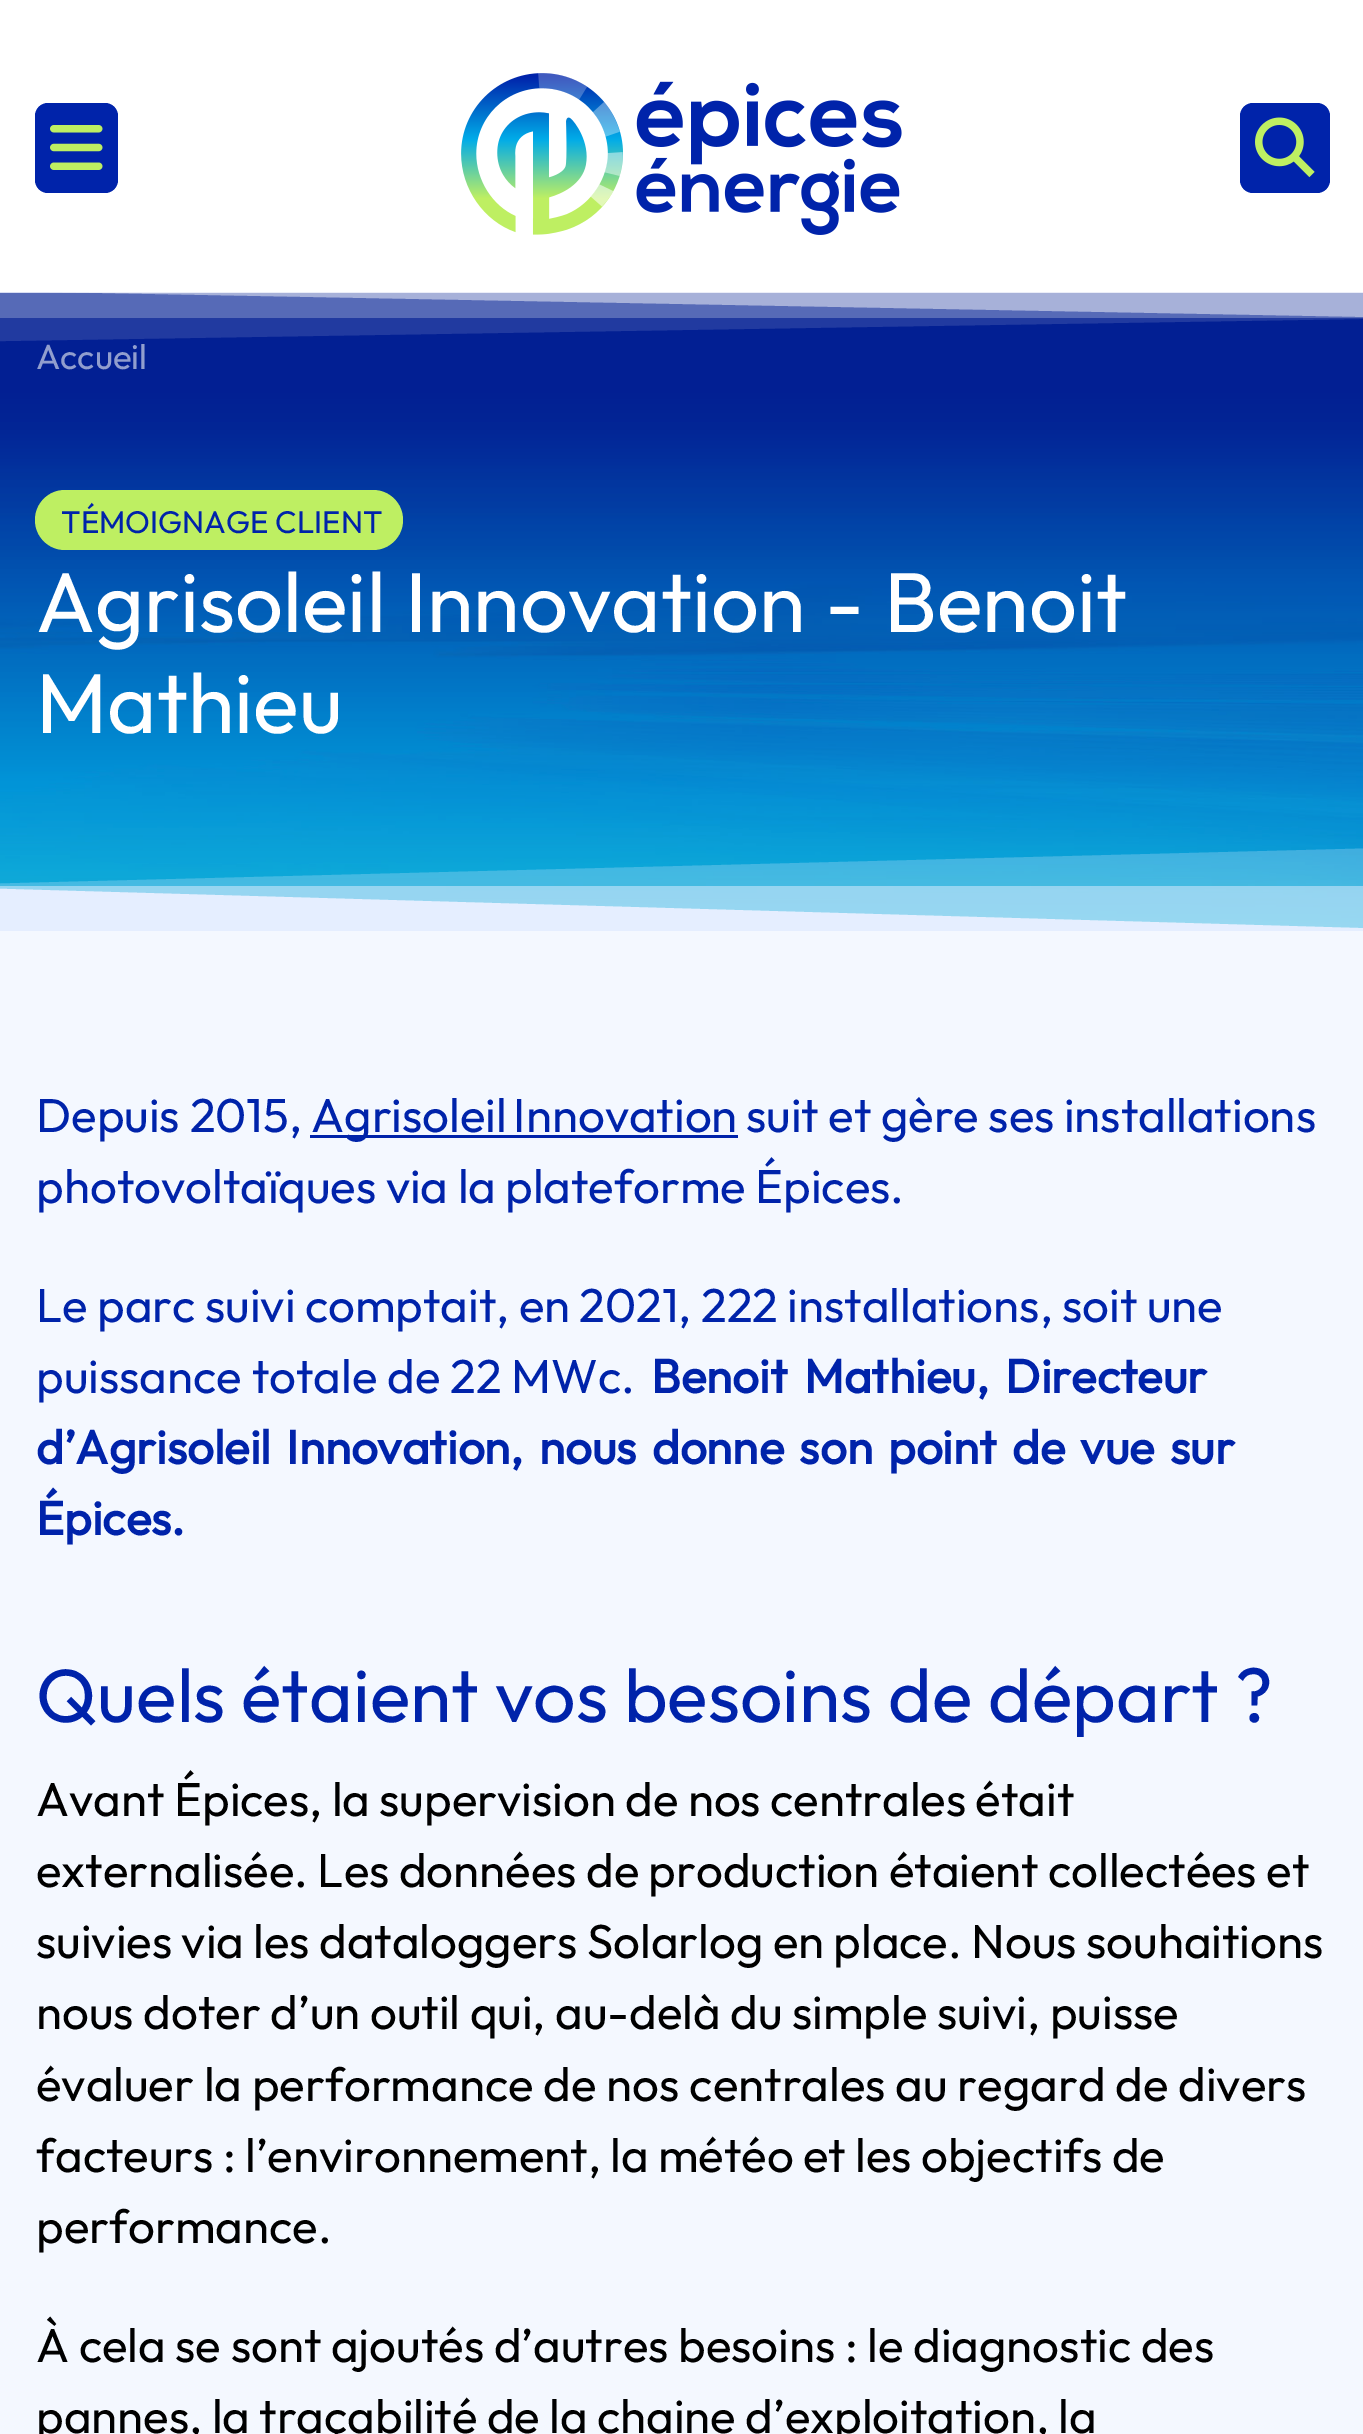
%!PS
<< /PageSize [1363 2434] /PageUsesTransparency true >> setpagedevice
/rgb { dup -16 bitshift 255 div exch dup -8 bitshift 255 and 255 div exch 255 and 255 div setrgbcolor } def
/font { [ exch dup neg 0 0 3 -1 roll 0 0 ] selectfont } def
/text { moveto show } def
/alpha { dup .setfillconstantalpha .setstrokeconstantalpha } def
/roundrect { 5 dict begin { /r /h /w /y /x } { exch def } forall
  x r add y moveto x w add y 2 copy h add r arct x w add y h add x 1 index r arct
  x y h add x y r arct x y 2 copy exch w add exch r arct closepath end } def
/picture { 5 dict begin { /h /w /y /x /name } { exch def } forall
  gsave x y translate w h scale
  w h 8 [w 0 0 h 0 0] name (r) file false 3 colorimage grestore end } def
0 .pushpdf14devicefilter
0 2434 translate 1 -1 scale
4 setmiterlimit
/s1 { /Outfit-Regular 35 font 16#919ECE rgb } def
/s2 { /Outfit-Regular 31.25 font 16#0023AA rgb } def
/s3 { /Outfit-Regular 84.9 font 16#FFFFFF rgb } def
/s4 { /Outfit-Regular 47.5 font 16#0023AA rgb } def
/s5 { /Outfit-Bold 47.5 font 16#0023AA rgb } def
/s6 { /Outfit-Regular 75.25 font 16#0023AA rgb } def
/s7 { /Outfit-Regular 47.5 font 16#000000 rgb } def
16#FFFFFF rgb
0 0 1363 2434 rectfill
16#0023AA rgb
35 103 83 90 13 roundrect fill
(pic1.raw) 50 125 53 45 picture
(pic2.raw) 461 73 441 162 picture
1240 103 90 90 13 roundrect fill
(pic3.raw) 1255 117 60 61 picture
gsave 0 293 moveto 1363 293 lineto 1363 929 lineto 0 929 lineto closepath clip newpath
<< /ShadingType 2 /ColorSpace /DeviceRGB /Coords [683 292 683 930] /Extend [true true] /Function << /FunctionType 3 /Domain [0 1] /Functions [<< /FunctionType 2 /Domain [0 1] /C0 [0.012 0.114 0.502] /C1 [0.012 0.114 0.502] /N 1 >> << /FunctionType 2 /Domain [0 1] /C0 [0.012 0.114 0.502] /C1 [0 0.671 0.91] /N 1 >>] /Bounds [0.22] /Encode [0 1 0 1] >> >> shfill grestore
(pic4.raw) 0 292 1363 637 picture
0.48 alpha
16#FFFFFF rgb
-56 290 moveto 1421 290 lineto 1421 318 lineto closepath fill
0.24 alpha
0 292 1363 26 rectfill
0.12 alpha
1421 290 moveto -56 290 lineto -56 342 lineto 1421 318 lineto closepath fill
1 alpha
s1
(Accueil) 36 369 text
16#BEEF62 rgb
35 490 368 60 30 roundrect fill
s2
(TÉMOIGNAGE CLIENT) 61 533 text
/Outfit-Regular 84.9 font
16#FFFFFF rgb
36 632 moveto 2 0 32 (Agrisoleil Innovation - Benoit) widthshow
(Mathieu) 36 733 text
16#E5EEFF rgb
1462 931 moveto -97 931 lineto -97 886 lineto closepath fill
0.5 alpha
0 886 1363 43 rectfill
0.25 alpha
-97 931 moveto 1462 931 lineto 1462 846 lineto -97 886 lineto closepath fill
0.43 alpha
0 931 1363 1503 rectfill
1 alpha
s4
(Depuis 2015,) 36 1132 text
310 1135 428 3 rectfill
311 1132 moveto -3 0 32 (Agrisoleil Innovation) widthshow
746 1132 moveto -0.5 0 32 (suit et gère ses installations) widthshow
36 1203 moveto -0.5 0 32 (photovoltaïques via la plateforme Épices.) widthshow
36 1322 moveto -0.5 0 32 (Le parc suivi comptait, en 2021, 222 installations, soit une) widthshow
(puissance totale de 22 MWc.) 36 1393 text
/Outfit-Bold 47.5 font
651 1393 moveto 7 0 32 (Benoit Mathieu, Directeur) widthshow
36 1464 moveto 5.5 0 32 (d’Agrisoleil Innovation, nous donne son point de vue sur) widthshow
(Épices.) 36 1535 text
s6
(Quels étaient vos besoins de départ ?) 36 1722 text
/Outfit-Regular 47.5 font
16#000000 rgb
36 1816 moveto -0.5 0 32 (Avant Épices, la supervision de nos centrales était) widthshow
36 1887 moveto -0.5 0 32 (externalisée. Les données de production étaient collectées et) widthshow
36 1958 moveto -0.5 0 32 (suivies via les dataloggers Solarlog en place. Nous souhaitions) widthshow
36 2029 moveto -0.25 0 32 (nous doter d’un outil qui, au-delà du simple suivi, puisse) widthshow
(évaluer la performance de nos centrales au regard de divers) 36 2101 text
36 2172 moveto -0.5 0 32 (facteurs : l’environnement, la météo et les objectifs de) widthshow
(performance.) 36 2243 text
36 2362 moveto -0.25 0 32 (À cela se sont ajoutés d’autres besoins : le diagnostic des) widthshow
36 2433 moveto -0.5 0 32 (pannes, la traçabilité de la chaine d’exploitation, la) widthshow
.poppdf14devicefilter showpage
